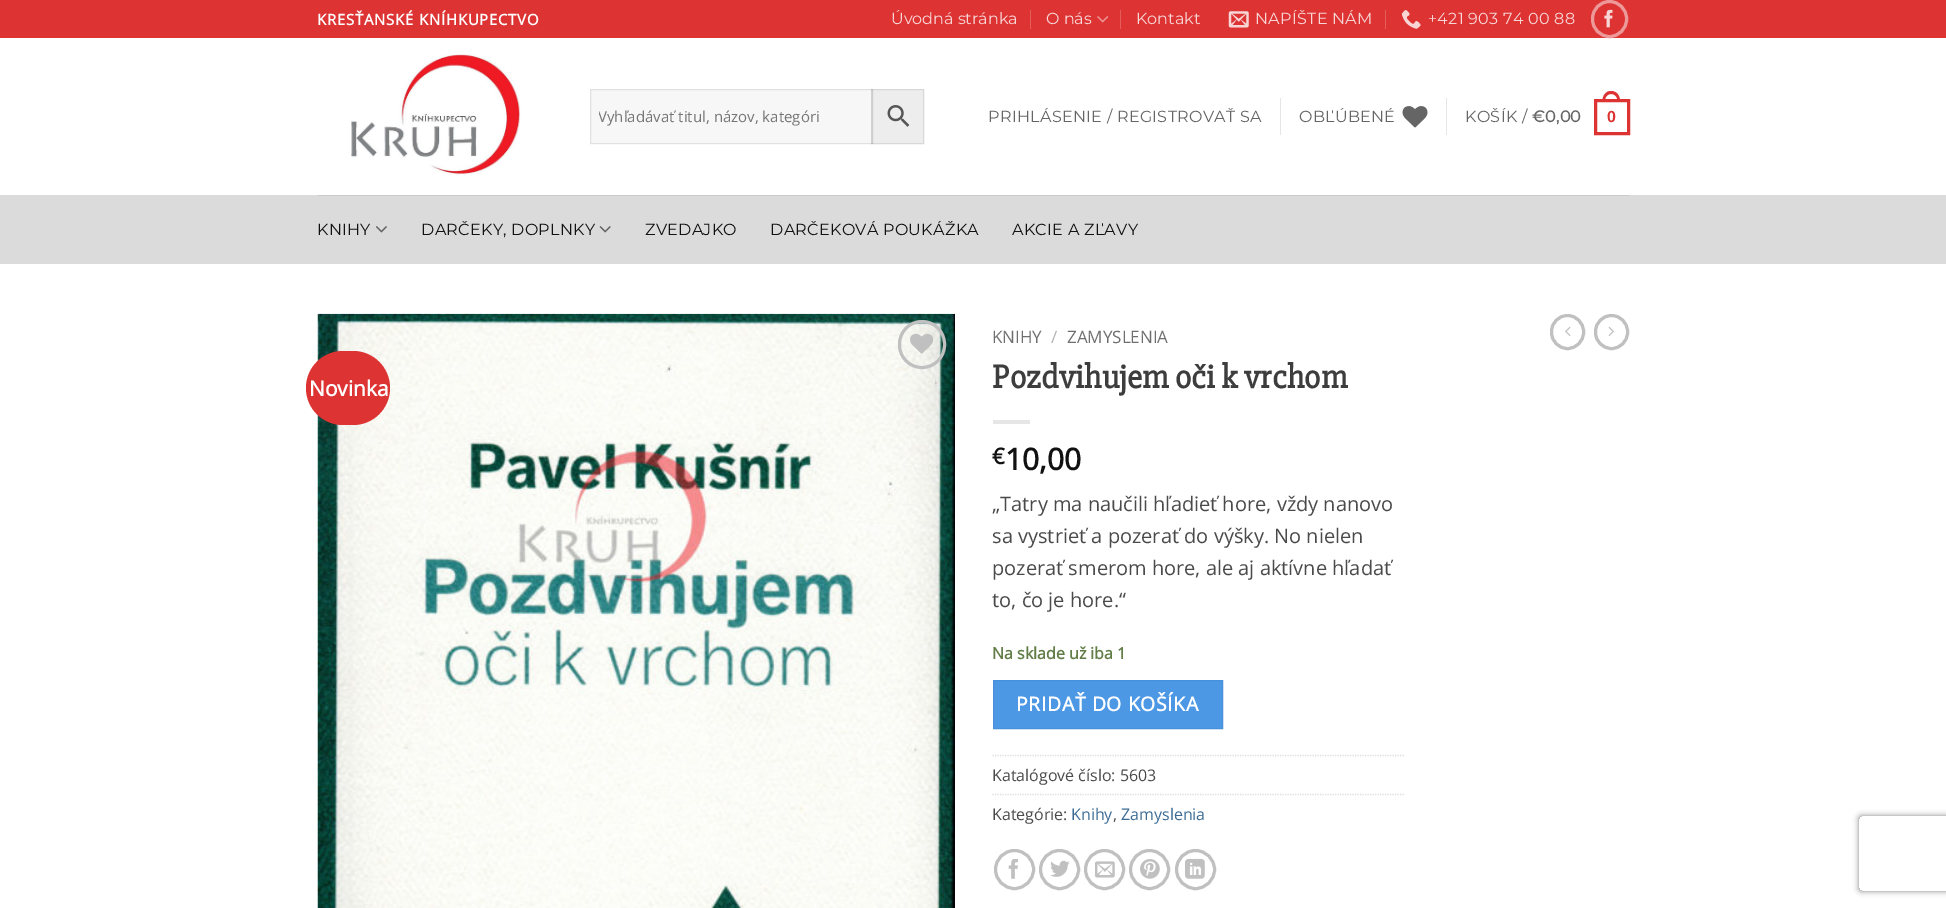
%!PS
<< /PageSize [1946 908] /PageUsesTransparency true >> setpagedevice
/rgb { dup -16 bitshift 255 div exch dup -8 bitshift 255 and 255 div exch 255 and 255 div setrgbcolor } def
/font { [ exch dup neg 0 0 3 -1 roll 0 0 ] selectfont } def
/text { moveto show } def
/alpha { dup .setfillconstantalpha .setstrokeconstantalpha } def
/circle { newpath 0 360 arc closepath } def
/roundrect { 5 dict begin { /r /h /w /y /x } { exch def } forall
  x r add y moveto x w add y 2 copy h add r arct x w add y h add x 1 index r arct
  x y h add x y r arct x y 2 copy exch w add exch r arct closepath end } def
/shadow { 12 dict begin { /a /b /q /h /w /y /x } { exch def } forall gsave /was 0 def
  9 -2 -9 { dup b mul 4 div /e exch def 1 sub .425 mul 2.718 exch exp 1 add a .99 .min exch div /now exch def
    1 1 now sub 1 was sub div sub alpha /was now def
    w h .min e 2 mul add 0 gt { x e sub y e sub w e 2 mul add h e 2 mul add
      q e add b .6 mul add w h .min 2 div e add .min 0 .max roundrect fill } if } for grestore end } def
/picture { 5 dict begin { /h /w /y /x /name } { exch def } forall
  gsave x y translate w h scale
  w h 8 [w 0 0 h 0 0] name (r) file false 3 colorimage grestore end } def
0 .pushpdf14devicefilter
0 908 translate 1 -1 scale
4 setmiterlimit
/s1 { /Montserrat-Thin 16 font 16#F8D6D6 rgb } def
/s2 { /OpenSans-Regular 15 font 16#757575 rgb } def
/s3 { /OpenSans-Bold 21 font 16#FFFFFF rgb } def
/s4 { /OpenSans-Regular 17 font 16#6E6E6E rgb } def
/s5 { /OpenSans-Regular 17 font 16#B2B2B2 rgb } def
/s6 { /Slabo27px-Bold 34 font 16#3D3D3D rgb } def
/s7 { /OpenSans-Bold 22 font 16#111111 rgb } def
/s8 { /OpenSans-Bold 30 font 16#111111 rgb } def
/s9 { /OpenSans-Regular 20 font 16#4A4A4A rgb } def
/s10 { /OpenSans-Bold 16 font 16#627D47 rgb } def
/s11 { /OpenSans-Regular 16 font 16#4A4A4A rgb } def
/s12 { /OpenSans-Regular 16 font 16#3B6A95 rgb } def
16#FFFFFF rgb
0 0 1946 908 rectfill
16#DD3333 rgb
0 0 1946 38 rectfill
/OpenSans-Bold 15 font
16#FFFFFF rgb
317 25 moveto 0.75 0 (KRESŤANSKÉ KNÍHKUPECTVO) ashow
s1
(Úvodná stránka) 891 24 text
16#E45C5C rgb
1030 10 1 19 rectfill
s1
(O nás) 1046 24 text
(pic1.raw) 1097 16 12 7 picture
16#E45C5C rgb
1120 10 1 19 rectfill
s1
(Kontakt) 1136 24 text
(pic2.raw) 1228 11 21 17 picture
1255 24 moveto 0.3 0 (NAPÍŠTE NÁM) ashow
16#E45C5C rgb
1385 10 1 19 rectfill
(pic3.raw) 1401 10 20 19 picture
16#F8D6D6 rgb
1428 24 moveto 0.3 0 (+421 903 74 00 88) ashow
16#EE9999 rgb
3 setlinewidth
1592.5 1.5 34 35 17 roundrect stroke
(pic4.raw) 1604 9 9 19 picture
(pic5.raw) 351 54 170 121 picture
16#EDEDED rgb
871.5 89.5 moveto 923.5 89.5 lineto 923.5 143.5 lineto 871.5 143.5 lineto closepath gsave fill grestore
16#D8D8D8 rgb
1 setlinewidth
stroke
0.03 alpha
16#000000 rgb
590 89 283 55 rectfill
0.09 alpha
590.5 89.5 282 54 rectstroke
gsave
599 106 222 22 rectclip
1 alpha
s2
(Vyhľadávať titul, názov, kategóri) 598 122 text
grestore
1 alpha
(pic6.raw) 887 105 23 22 picture
16#656565 rgb
988 122 moveto 0.3 0 (PRIHLÁSENIE / REGISTROVAŤ SA) ashow
16#E6E6E6 rgb
1280 98 1 37 rectfill
16#656565 rgb
1299 122 moveto 0.3 0 (OBĽÚBENÉ) ashow
(pic7.raw) 1402 106 26 22 picture
16#E6E6E6 rgb
1446 98 1 37 rectfill
16#656565 rgb
1465 122 moveto 0.3 0 (KOŠÍK /) ashow
/Montserrat-Bold 16 font
1532 122 moveto 0.3 0 (€0,00) ashow
16#DD3333 rgb
3 setlinewidth
1595.5 100.5 33 33 rectstroke
1611 91 moveto 1617 91 1620 96 1620 101 curveto 1602.5 101 lineto 1602.5 96 1605.5 91 1611 91 curveto closepath 1611 94 moveto 1615.5 94 1617.5 97.5 1617.5 101 curveto 1605 101 lineto 1605 97.5 1607 94 1611 94 curveto closepath eofill
/LiberationSans-Bold 16 font
1607 122 moveto 0.3 0 (0) ashow
16#DBDBDB rgb
0 195 1946 69 rectfill
16#CCCCCC rgb
318 195 1312 1 rectfill
/Montserrat-Thin 16 font
16#111111 rgb
317 235 moveto 0.3 0 (KNIHY) ashow
(pic8.raw) 376 226 11 7 picture
421 235 moveto 0.3 0 (DARČEKY, DOPLNKY) ashow
(pic9.raw) 599 226 12 7 picture
645 235 moveto 0.3 0 (ZVEDAJKO) ashow
770 235 moveto 0.3 0 (DARČEKOVÁ POUKÁŽKA) ashow
1012 235 moveto 0.3 0 (AKCIE A ZĽAVY) ashow
(pic10.raw) 317 313 638 595 picture
16#C0C0C0 rgb
899.5 321.5 45 46 22.5 roundrect stroke
(pic11.raw) 910 333 24 21 picture
16#DD3333 rgb
306 351 84 74 37 roundrect fill
s3
(Novinka) 309 396 text
s4
(KNIHY) 992 343 text
s5
(/) 1051 343 text
s4
(ZAMYSLENIA) 1067 343 text
s6
(Pozdvihujem oči k vrchom) 992 388 text
16#E6E6E6 rgb
993 420 37 4 rectfill
s7
(€) 992 464 text
s8
(10,00) 1005 470 text
s9
(„Tatry ma naučili hľadieť hore, vždy nanovo) 992 511 text
(sa vystrieť a pozerať do výšky. No nielen) 992 543 text
(pozerať smerom hore, ale aj aktívne hľadať) 992 575 text
(to, čo je hore.“) 992 607 text
s10
(Na sklade už iba 1) 992 659 text
16#4C98E5 rgb
993.5 680.5 moveto 1222.5 680.5 lineto 1222.5 728.5 lineto 993.5 728.5 lineto closepath gsave fill grestore
16#4890DA rgb
1 setlinewidth
stroke
/OpenSans-Bold 19.5 font
16#FFFFFF rgb
1016 711 moveto 0.6 0 (PRIDAŤ DO KOŠÍKA) ashow
16#DDDDDD rgb
1.2 setlinewidth
[1.25 1.25] 0 setdash
992.5 755.5 moveto 1405 755.5 lineto stroke
s11
(Katalógové číslo: 5603) 992 781 text
16#DDDDDD rgb
992.5 794.5 moveto 1405 794.5 lineto stroke
s11
(Kategórie:) 992 820 text
s12
(Knihy) 1071 820 text
s11
(,) 1113 820 text
s12
(Zamyslenia) 1121 820 text
16#C0C0C0 rgb
3 setlinewidth
[] 0 setdash
1014.5 869.5 19 circle stroke
(pic12.raw) 1008 858 10 21 picture
1059.5 869.5 19 circle stroke
(pic13.raw) 1050 860 20 17 picture
1104.5 869.5 19 circle stroke
(pic14.raw) 1095 861 20 17 picture
1149.5 869.5 19 circle stroke
(pic15.raw) 1140 859 20 20 picture
1195.5 869.5 19 circle stroke
(pic16.raw) 1185 858 20 21 picture
1551.5 315.5 32 33 16 roundrect stroke
(pic17.raw) 1565 326 6 10 picture
1595.5 315.5 32 33 16 roundrect stroke
(pic18.raw) 1608 326 6 10 picture
gsave
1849 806 moveto 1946 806 lineto 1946 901 lineto 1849 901 lineto closepath 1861.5 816 moveto 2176.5 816 lineto 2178 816 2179 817 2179 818.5 curveto 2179 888.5 lineto 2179 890 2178 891 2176.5 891 curveto 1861.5 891 lineto 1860 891 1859 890 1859 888.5 curveto 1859 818.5 lineto 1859 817 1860 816 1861.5 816 curveto closepath eoclip newpath
16#808080 rgb
1859 816 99 75 2.5 3 1 shadow
grestore
.poppdf14devicefilter showpage
